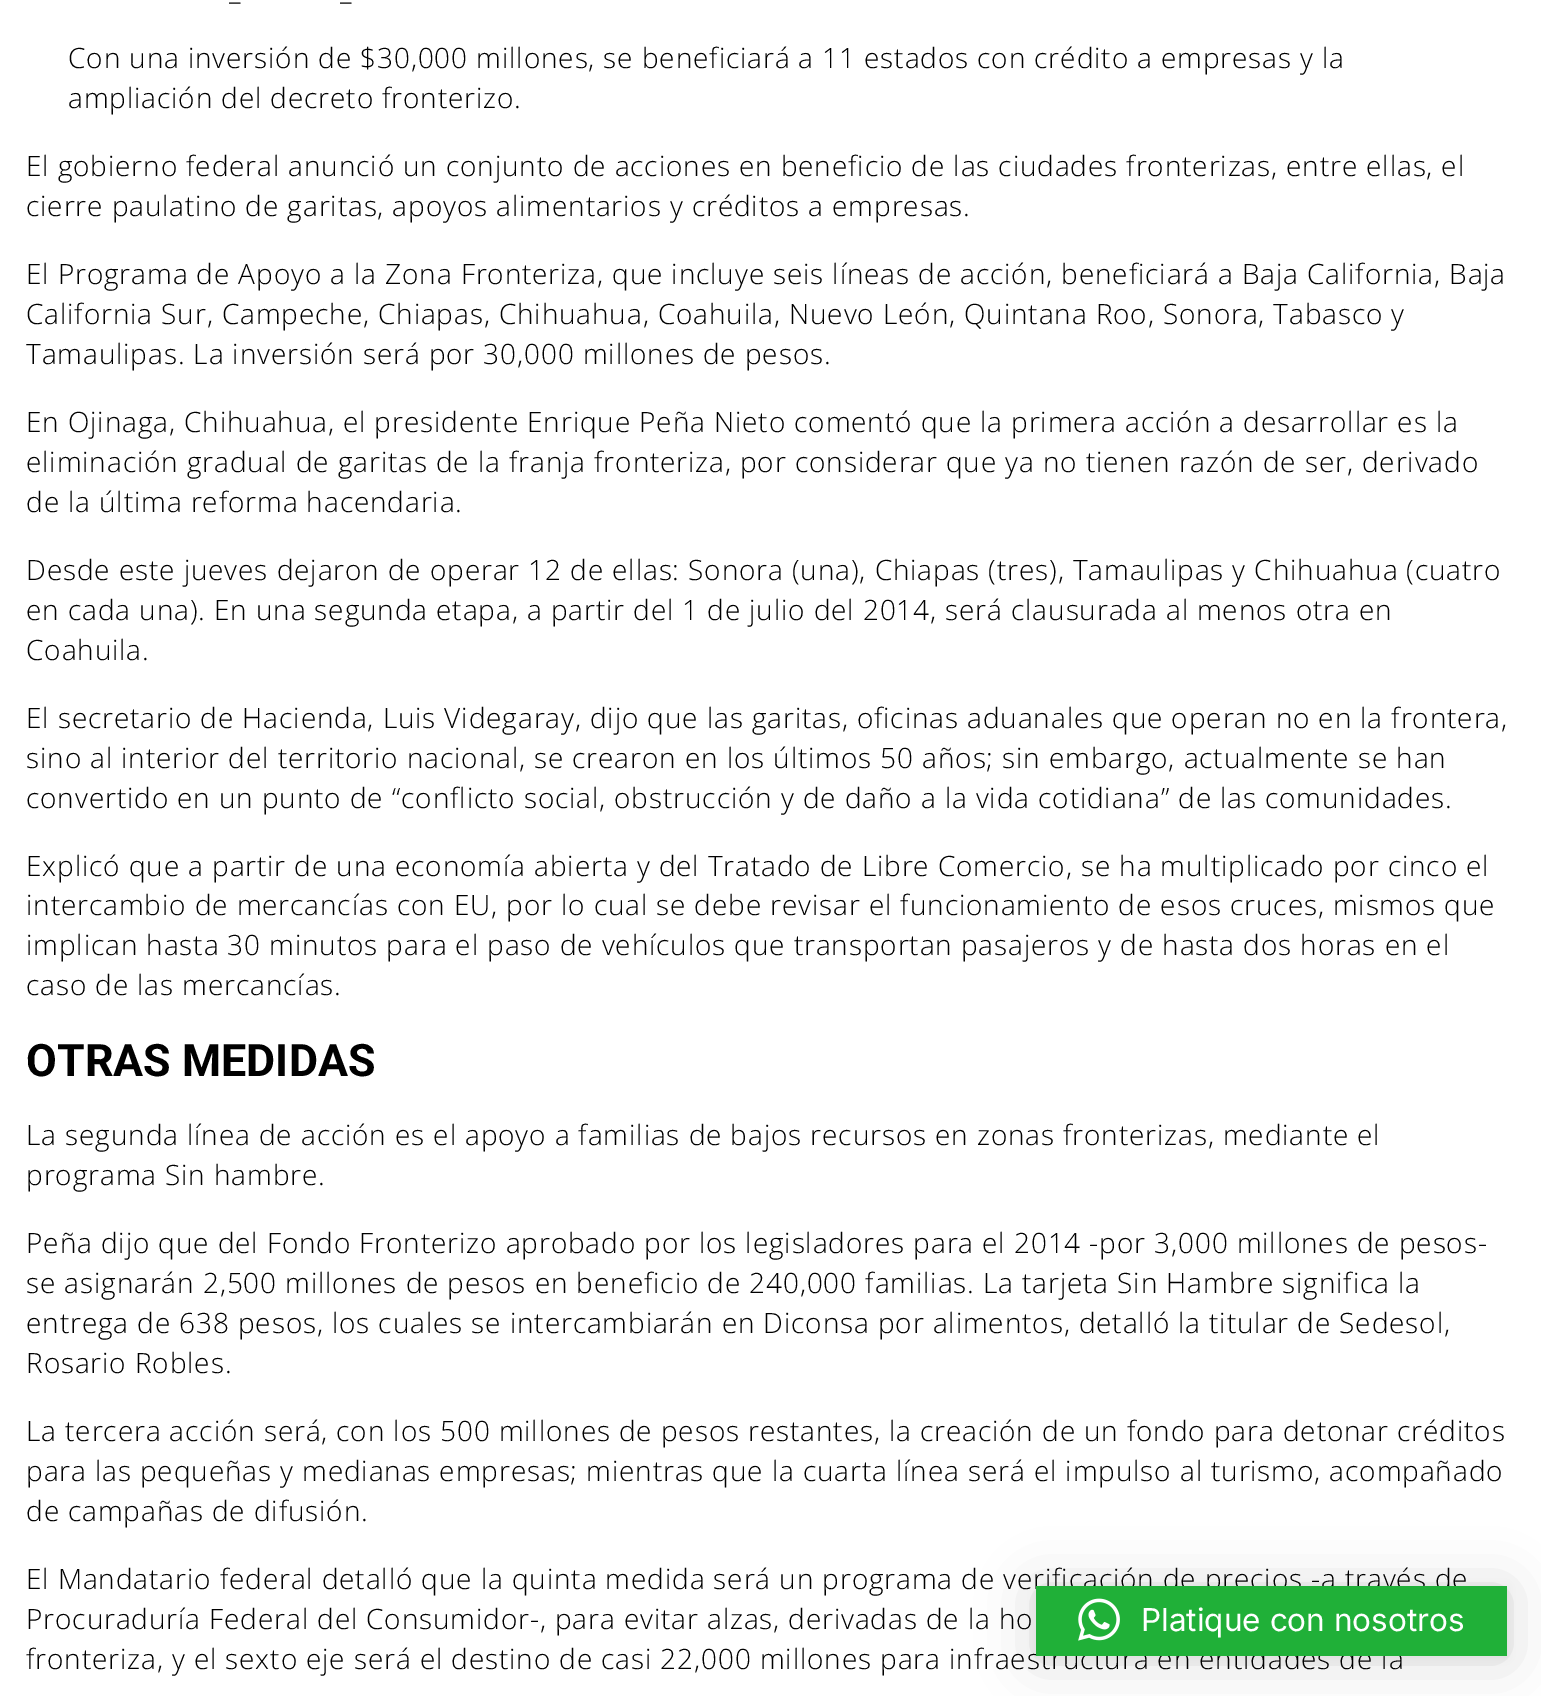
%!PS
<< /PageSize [1541 1696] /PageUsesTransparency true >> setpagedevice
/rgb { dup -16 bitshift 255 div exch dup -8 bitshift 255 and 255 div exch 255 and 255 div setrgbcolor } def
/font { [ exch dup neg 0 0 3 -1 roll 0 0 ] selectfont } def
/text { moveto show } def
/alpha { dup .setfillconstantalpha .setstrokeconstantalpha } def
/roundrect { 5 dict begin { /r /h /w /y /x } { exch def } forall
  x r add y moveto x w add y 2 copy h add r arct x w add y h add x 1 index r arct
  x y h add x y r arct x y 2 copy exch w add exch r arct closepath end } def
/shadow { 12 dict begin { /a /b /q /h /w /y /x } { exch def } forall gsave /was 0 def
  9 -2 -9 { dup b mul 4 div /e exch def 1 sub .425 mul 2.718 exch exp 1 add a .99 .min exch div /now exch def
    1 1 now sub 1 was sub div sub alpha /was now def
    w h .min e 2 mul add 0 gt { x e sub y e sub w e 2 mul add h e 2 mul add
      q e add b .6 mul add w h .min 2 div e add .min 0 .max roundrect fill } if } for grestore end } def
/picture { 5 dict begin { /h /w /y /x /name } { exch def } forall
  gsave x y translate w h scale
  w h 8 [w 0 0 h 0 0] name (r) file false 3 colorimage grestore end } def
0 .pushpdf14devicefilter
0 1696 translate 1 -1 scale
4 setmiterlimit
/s1 { /Roboto-Bold 44.75 font 16#000000 rgb } def
/s2 { /Inter-Regular 31.5 font 16#FFFFFF rgb } def
16#FFFFFF rgb
0 0 1541 1696 rectfill
/OpenSans-Light 28 font
16#000000 rgb
229 0 moveto 0.88 0 (_) ashow
340 0 moveto 0.88 0 (_) ashow
68 68 moveto 0.88 0 (Con una inversión de $30,000 millones, se beneficiará a 11 estados con crédito a empresas y la) ashow
68 108 moveto 0.88 0 (ampliación del decreto fronterizo.) ashow
26 176 moveto 0.88 0 (El gobierno federal anunció un conjunto de acciones en beneficio de las ciudades fronterizas, entre ellas, el) ashow
26 216 moveto 0.88 0 (cierre paulatino de garitas, apoyos alimentarios y créditos a empresas.) ashow
26 284 moveto 0.88 0 (El Programa de Apoyo a la Zona Fronteriza, que incluye seis líneas de acción, beneficiará a Baja California, Baja) ashow
26 324 moveto 0.88 0 (California Sur, Campeche, Chiapas, Chihuahua, Coahuila, Nuevo León, Quintana Roo, Sonora, Tabasco y) ashow
26 364 moveto 0.88 0 (Tamaulipas. La inversión será por 30,000 millones de pesos.) ashow
26 432 moveto 0.88 0 (En Ojinaga, Chihuahua, el presidente Enrique Peña Nieto comentó que la primera acción a desarrollar es la) ashow
26 472 moveto 0.88 0 (eliminación gradual de garitas de la franja fronteriza, por considerar que ya no tienen razón de ser, derivado) ashow
26 512 moveto 0.88 0 (de la última reforma hacendaria.) ashow
26 580 moveto 0.88 0 (Desde este jueves dejaron de operar 12 de ellas: Sonora \(una\), Chiapas \(tres\), Tamaulipas y Chihuahua \(cuatro) ashow
26 620 moveto 0.88 0 (en cada una\). En una segunda etapa, a partir del 1 de julio del 2014, será clausurada al menos otra en) ashow
26 660 moveto 0.88 0 (Coahuila.) ashow
26 728 moveto 0.88 0 (El secretario de Hacienda, Luis Videgaray, dijo que las garitas, oficinas aduanales que operan no en la frontera,) ashow
26 768 moveto 0.88 0 (sino al interior del territorio nacional, se crearon en los últimos 50 años; sin embargo, actualmente se han) ashow
26 808 moveto 0.88 0 (convertido en un punto de “conflicto social, obstrucción y de daño a la vida cotidiana” de las comunidades.) ashow
26 876 moveto 0.88 0 (Explicó que a partir de una economía abierta y del Tratado de Libre Comercio, se ha multiplicado por cinco el) ashow
26 915 moveto 0.88 0 (intercambio de mercancías con EU, por lo cual se debe revisar el funcionamiento de esos cruces, mismos que) ashow
26 955 moveto 0.88 0 (implican hasta 30 minutos para el paso de vehículos que transportan pasajeros y de hasta dos horas en el) ashow
26 995 moveto 0.88 0 (caso de las mercancías.) ashow
s1
(OTRAS MEDIDAS) 26 1076 text
/OpenSans-Light 28 font
26 1145 moveto 0.88 0 (La segunda línea de acción es el apoyo a familias de bajos recursos en zonas fronterizas, mediante el) ashow
26 1185 moveto 0.88 0 (programa Sin hambre.) ashow
26 1253 moveto 0.88 0 (Peña dijo que del Fondo Fronterizo aprobado por los legisladores para el 2014 -por 3,000 millones de pesos-) ashow
26 1293 moveto 0.88 0 (se asignarán 2,500 millones de pesos en beneficio de 240,000 familias. La tarjeta Sin Hambre significa la) ashow
26 1333 moveto 0.88 0 (entrega de 638 pesos, los cuales se intercambiarán en Diconsa por alimentos, detalló la titular de Sedesol,) ashow
26 1373 moveto 0.88 0 (Rosario Robles.) ashow
26 1441 moveto 0.88 0 (La tercera acción será, con los 500 millones de pesos restantes, la creación de un fondo para detonar créditos) ashow
26 1481 moveto 0.88 0 (para las pequeñas y medianas empresas; mientras que la cuarta línea será el impulso al turismo, acompañado) ashow
26 1521 moveto 0.88 0 (de campañas de difusión.) ashow
26 1589 moveto 0.88 0 (El Mandatario federal detalló que la quinta medida será un programa de verificación de precios -a través de) ashow
26 1629 moveto 0.88 0 (Procuraduría Federal del Consumidor-, para evitar alzas, derivadas de la ho) ashow
26 1669 moveto 0.88 0 (fronteriza, y el sexto eje será el destino de casi 22,000 millones para infraestructura en entidades de la) ashow
1036 1589 471 70 0 28 0.16 shadow
1036 1587 471 70 0 5 0.06 shadow
16#20B038 rgb
1036 1586 471 70 rectfill
(pic1.raw) 1078 1598 42 43 picture
s2
(Platique con nosotros) 1141 1631 text
.poppdf14devicefilter showpage
